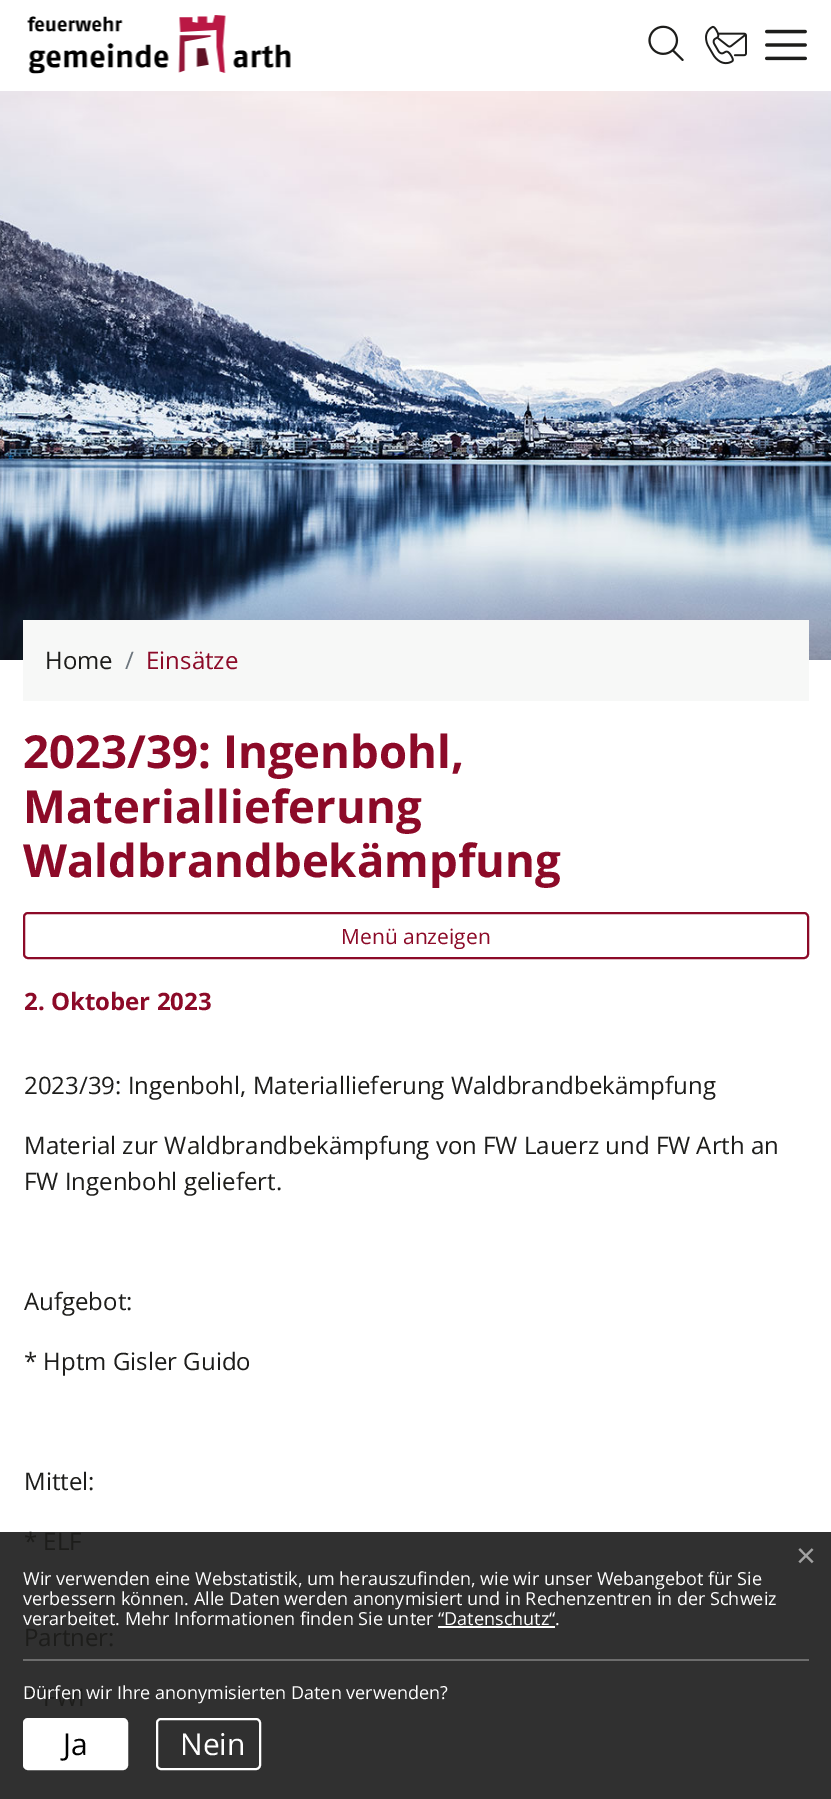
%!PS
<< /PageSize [831 1799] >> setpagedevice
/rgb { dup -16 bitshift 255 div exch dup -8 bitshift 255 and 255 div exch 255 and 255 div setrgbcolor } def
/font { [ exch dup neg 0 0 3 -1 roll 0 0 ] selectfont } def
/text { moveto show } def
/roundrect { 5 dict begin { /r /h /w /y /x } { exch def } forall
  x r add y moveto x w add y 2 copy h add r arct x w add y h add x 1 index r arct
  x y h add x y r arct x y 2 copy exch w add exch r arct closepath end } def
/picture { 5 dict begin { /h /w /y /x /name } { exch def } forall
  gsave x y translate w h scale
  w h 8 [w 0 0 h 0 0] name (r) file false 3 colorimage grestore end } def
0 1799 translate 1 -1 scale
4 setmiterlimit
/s1 { /OpenSans-Regular 24 font 16#1D1D1B rgb } def
/s2 { /OpenSans-Regular 24 font 16#6C757D rgb } def
/s3 { /OpenSans-Regular 24 font 16#8C0A28 rgb } def
/s4 { /OpenSans-Bold 45.5 font 16#8C0A28 rgb } def
/s5 { /OpenSans-Regular 21 font 16#8C0A28 rgb } def
/s6 { /OpenSans-Bold 24 font 16#8C0A28 rgb } def
/s7 { /LiberationSans-Regular 34 font 16#A2A2A2 rgb } def
/s8 { /OpenSans-Regular 18 font 16#FFFFFF rgb } def
/s9 { /OpenSans-Regular 30 font 16#000000 rgb } def
/s10 { /OpenSans-Regular 30 font 16#FFFFFF rgb } def
16#FFFFFF rgb
0 0 831 1799 rectfill
16#303030 rgb
0 1532 831 267 rectfill
(pic1.raw) 27 15 264 59 picture
(pic2.raw) 648 25 36 36 picture
(pic3.raw) 705 25 42 40 picture
(pic4.raw) 765 29 42 32 picture
(pic5.raw) 0 91 831 569 picture
16#F7F8F7 rgb
23 620 786 81 rectfill
s1
(Home) 45 669 text
s2
(/) 125 669 text
s3
(Einsätze) 146 669 text
s4
(2023/39: Ingenbohl,) 23 768 text
(Materiallieferung) 23 823 text
(Waldbrandbekämpfung) 23 877 text
2 setlinewidth
24 913 784 45 4 roundrect stroke
s5
(Menü anzeigen) 341 944 text
s6
(2. Oktober 2023) 24 1010 text
s1
(2023/39: Ingenbohl, Materiallieferung Waldbrandbekämpfung) 24 1094 text
(Material zur Waldbrandbekämpfung von FW Lauerz und FW Arth an) 24 1154 text
(FW Ingenbohl geliefert.) 24 1190 text
(Aufgebot:) 24 1310 text
(* Hptm Gisler Guido) 24 1370 text
(Mittel:) 24 1490 text
(* ELF) 24 1550 text
(Partner:) 24 1646 text
(* FWI) 24 1706 text
s7
(×) 796 1567 text
16#6D6D6D rgb
23 1659 786 2 rectfill
s8
(Wir verwenden eine Webstatistik, um herauszufinden, wie wir unser Webangebot für Sie) 23 1585 text
(verbessern können. Alle Daten werden anonymisiert und in Rechenzentren in der Schweiz) 23 1605 text
(verarbeitet. Mehr Informationen finden Sie unter “Datenschutz“.) 23 1625 text
438 1626 117 2 rectfill
(Dürfen wir Ihre anonymisierten Daten verwenden?) 23 1699 text
24 1719 103 50 4 roundrect gsave fill grestore
stroke
s9
(Ja) 63 1755 text
16#FFFFFF rgb
157 1719 103 50 4 roundrect stroke
(Nein) 180 1755 text
showpage
